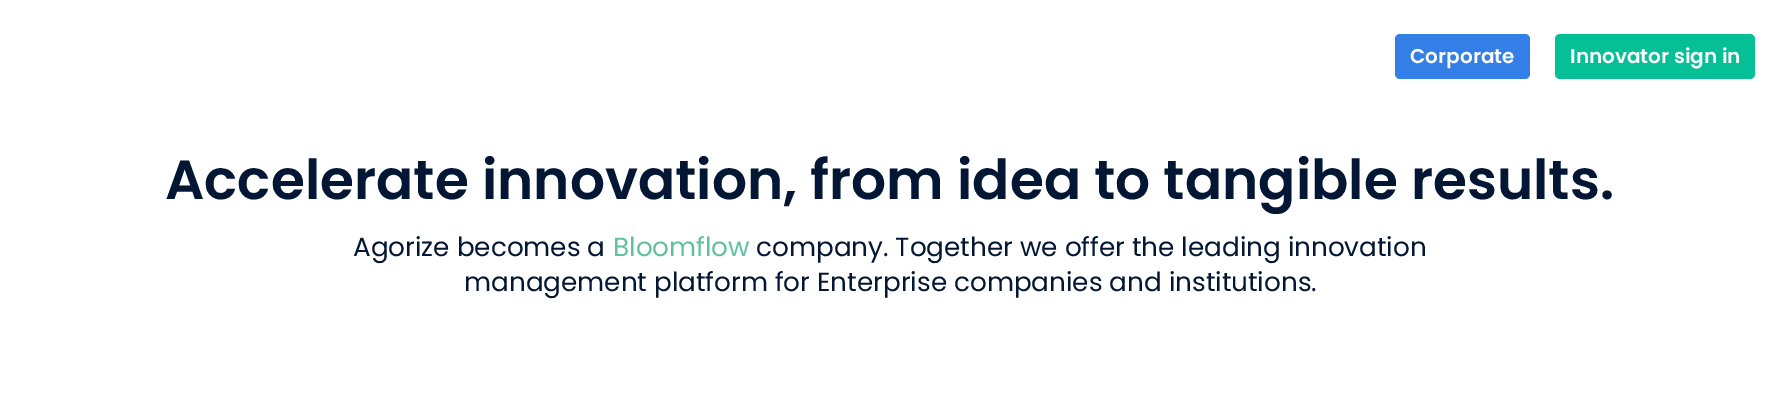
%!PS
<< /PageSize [1780 416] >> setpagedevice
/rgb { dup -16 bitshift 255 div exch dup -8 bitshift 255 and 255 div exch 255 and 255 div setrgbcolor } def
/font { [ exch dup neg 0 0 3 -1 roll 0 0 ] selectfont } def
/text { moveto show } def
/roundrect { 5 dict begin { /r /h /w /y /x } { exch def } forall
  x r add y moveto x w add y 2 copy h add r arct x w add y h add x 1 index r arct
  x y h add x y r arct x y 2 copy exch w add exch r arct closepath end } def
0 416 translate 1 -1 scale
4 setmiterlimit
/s1 { /Poppins-SemiBold 20 font 16#FFFFFF rgb } def
/s2 { /Poppins-SemiBold 55 font 16#031633 rgb } def
/s3 { /Poppins-Regular 26.25 font 16#031633 rgb } def
/s4 { /Poppins-Regular 26.25 font 16#5FC1A1 rgb } def
16#FFFFFF rgb
0 0 1780 416 rectfill
16#337FE7 rgb
1395 34 135 45 5 roundrect fill
s1
(Corporate) 1410 63 text
16#05C097 rgb
1555 34 200 45 5 roundrect fill
s1
(Innovator sign in) 1570 63 text
s2
(Accelerate innovation, from idea to tangible results.) 165 199 text
s3
(Agorize becomes a) 353 256 text
s4
(Bloomflow) 613 256 text
s3
(company. Together we offer the leading innovation) 756 256 text
(management platform for Enterprise companies and institutions.) 464 291 text
showpage
